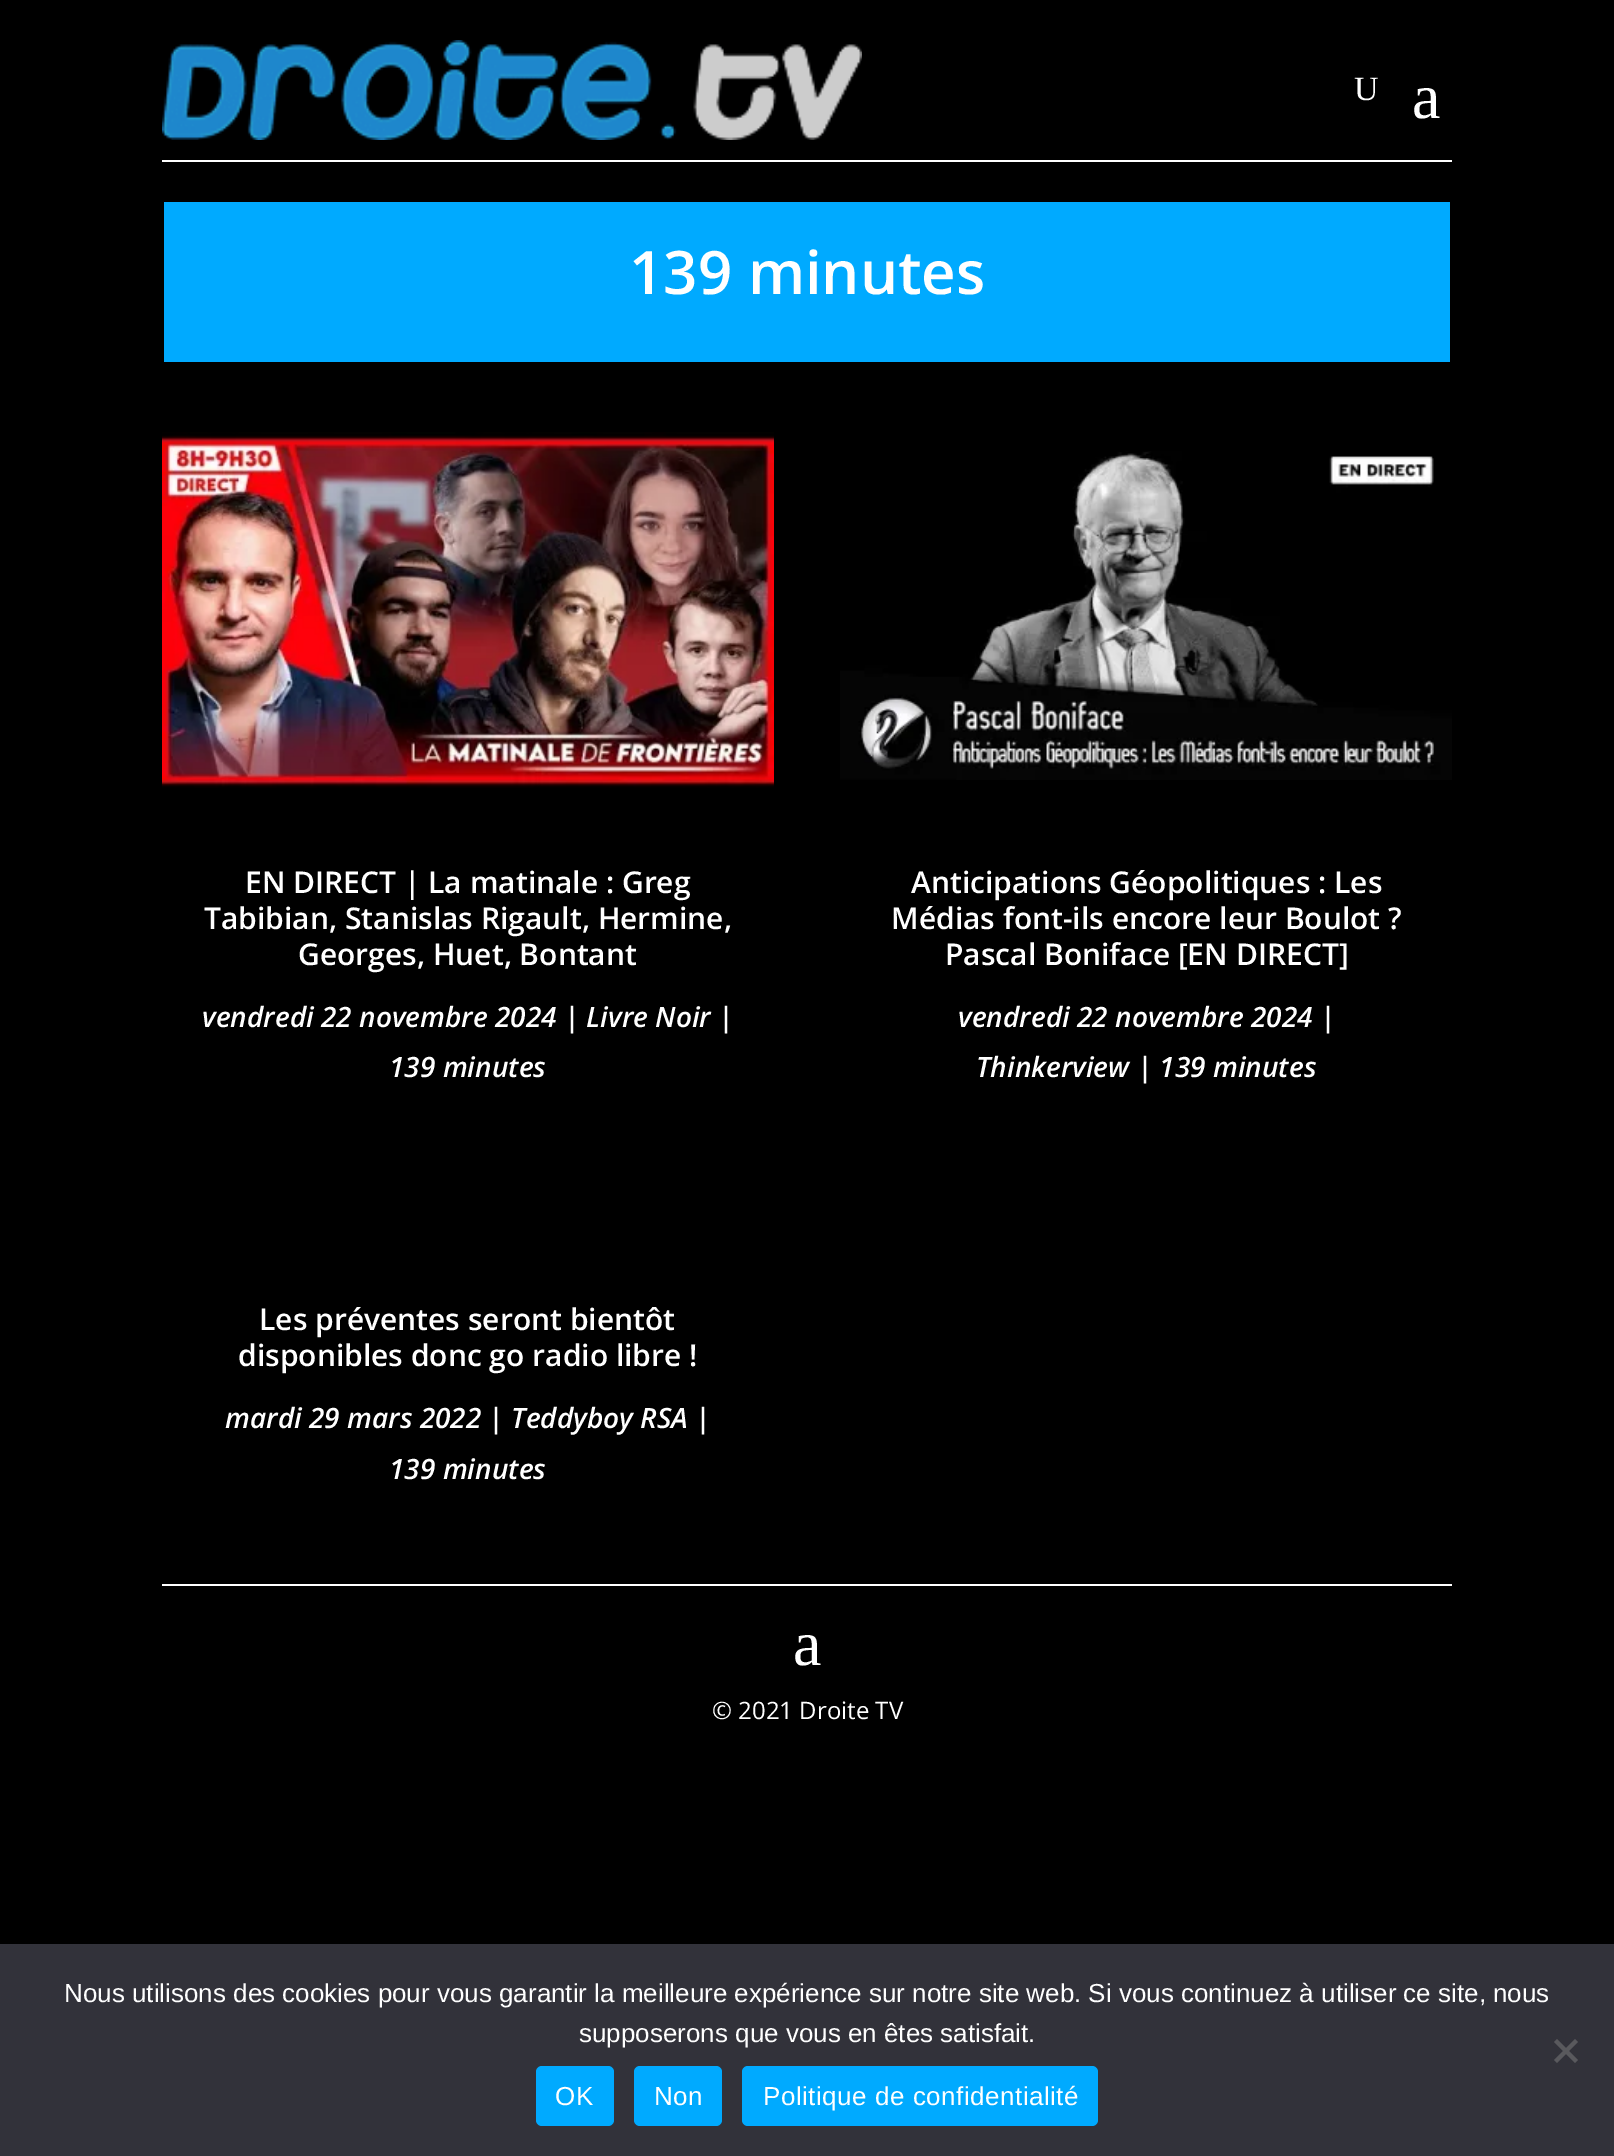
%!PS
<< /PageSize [1614 2156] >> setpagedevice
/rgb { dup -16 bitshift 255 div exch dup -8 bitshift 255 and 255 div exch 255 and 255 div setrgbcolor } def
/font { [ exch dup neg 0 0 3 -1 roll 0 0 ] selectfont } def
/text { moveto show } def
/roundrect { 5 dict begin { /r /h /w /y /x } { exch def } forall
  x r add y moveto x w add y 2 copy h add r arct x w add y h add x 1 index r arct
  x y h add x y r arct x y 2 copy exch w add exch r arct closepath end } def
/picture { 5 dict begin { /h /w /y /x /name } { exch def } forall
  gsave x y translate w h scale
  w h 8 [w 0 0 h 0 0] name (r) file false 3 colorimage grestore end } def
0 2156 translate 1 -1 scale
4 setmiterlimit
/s1 { /LiberationSerif-Regular 34 font 16#FFFFFF rgb } def
/s2 { /LiberationSerif-Regular 64 font 16#FFFFFF rgb } def
/s3 { /OpenSans-SemiBold 60 font 16#FFFFFF rgb } def
/s4 { /OpenSans-SemiBold 30 font 16#FFFFFF rgb } def
/s5 { /OpenSans-SemiBoldItalic 28 font 16#FFFFFF rgb } def
/s6 { /OpenSans-Regular 24 font 16#FFFFFF rgb } def
/s7 { /LiberationSans-Regular 26 font 16#FFFFFF rgb } def
16#000000 rgb
0 0 1614 2156 rectfill
16#FFFFFF rgb
162 160 1290 2 rectfill
(pic1.raw) 162 40 700 100 picture
s1
(U) 1354 100 text
s2
(a) 1412 118 text
16#00AAFF rgb
164 202 1286 160 rectfill
s3
(139 minutes) 629 294 text
(pic2.raw) 162 432 612 356 picture
s4
(EN DIRECT | La matinale : Greg) 245 893 text
(Tabibian, Stanislas Rigault, Hermine,) 204 929 text
(Georges, Huet, Bontant) 298 965 text
s5
(vendredi 22 novembre 2024 | Livre Noir |) 202 1027 text
(139 minutes) 389 1077 text
s4
(Les préventes seront bientôt) 259 1330 text
(disponibles donc go radio libre !) 238 1366 text
s5
(mardi 29 mars 2022 | Teddyboy RSA |) 225 1428 text
(139 minutes) 389 1479 text
(pic3.raw) 840 451 612 329 picture
s4
(Anticipations Géopolitiques : Les) 911 893 text
(Médias font-ils encore leur Boulot ?) 891 929 text
(Pascal Boniface [EN DIRECT]) 945 965 text
s5
(vendredi 22 novembre 2024 |) 958 1027 text
(Thinkerview | 139 minutes) 976 1077 text
162 1584 1290 2 rectfill
s2
(a) 793 1665 text
s6
(© 2021 Droite TV) 712 1719 text
16#32323A rgb
0 1944 1614 212 rectfill
s7
(Nous utilisons des cookies pour vous garantir la meilleure expérience sur notre site web. Si vous continuez à utiliser ce site, nous) 64 2002 text
(supposerons que vous en êtes satisfait.) 579 2042 text
16#59595D rgb
1575 2039 moveto 1578 2042 lineto 1557 2063 lineto 1554 2060 lineto closepath fill
1554 2042 moveto 1557 2039 lineto 1578 2060 lineto 1575 2063 lineto closepath fill
16#00AAFF rgb
536 2066 78 60 6 roundrect fill
16#FFFFFF rgb
555 2105 moveto 0.5 0 (OK) ashow
16#00AAFF rgb
634 2066 88 60 6 roundrect fill
16#FFFFFF rgb
654 2105 moveto 0.5 0 (Non) ashow
16#00AAFF rgb
742 2066 356 60 6 roundrect fill
16#FFFFFF rgb
763 2105 moveto 0.5 0 (Politique de confidentialité) ashow
showpage
